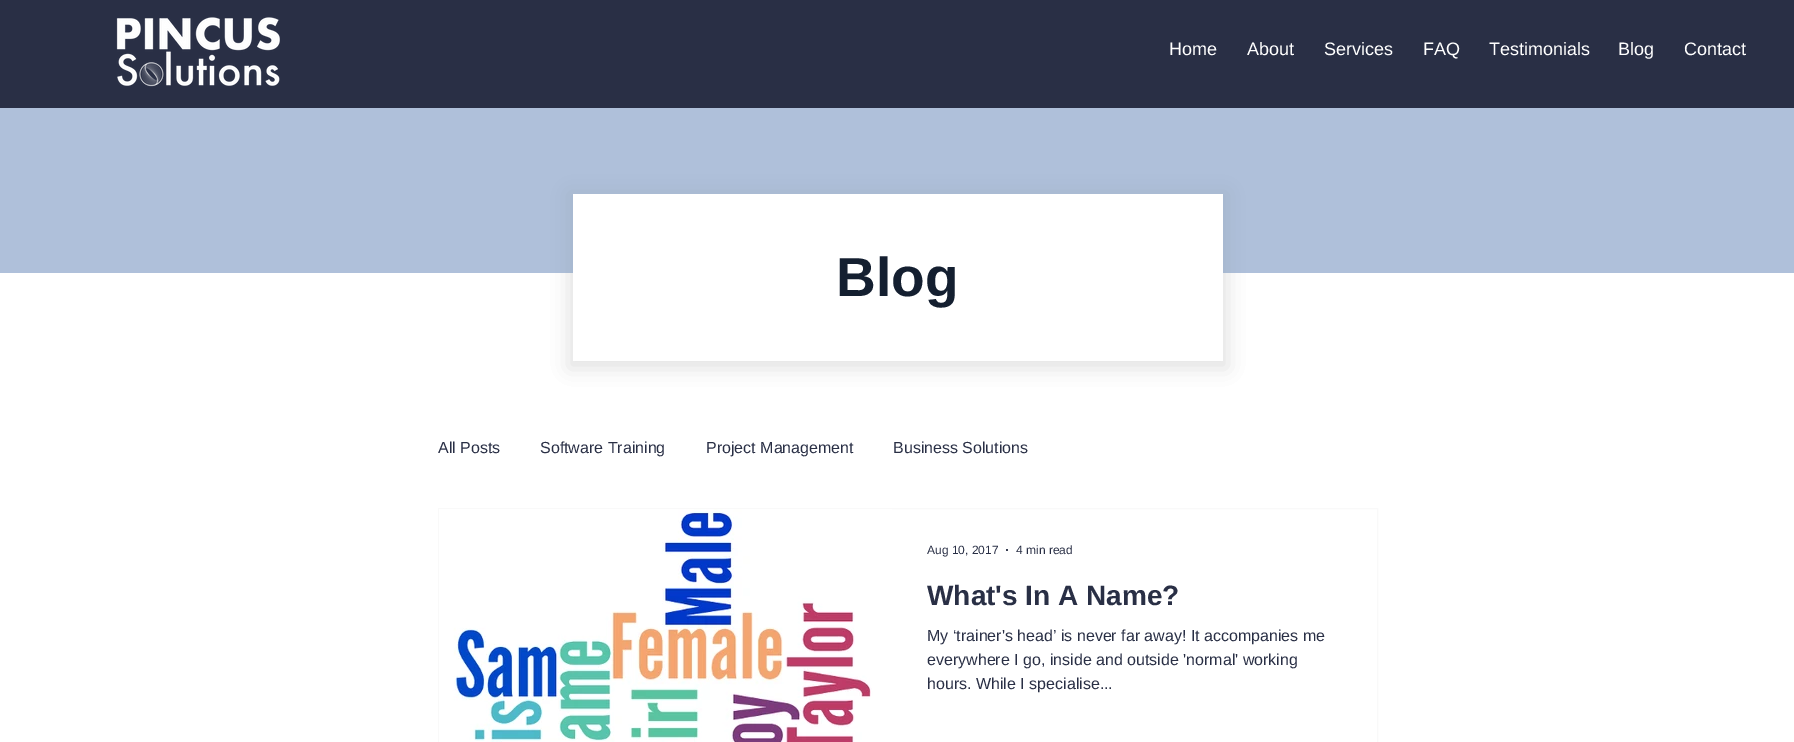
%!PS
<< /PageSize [1794 742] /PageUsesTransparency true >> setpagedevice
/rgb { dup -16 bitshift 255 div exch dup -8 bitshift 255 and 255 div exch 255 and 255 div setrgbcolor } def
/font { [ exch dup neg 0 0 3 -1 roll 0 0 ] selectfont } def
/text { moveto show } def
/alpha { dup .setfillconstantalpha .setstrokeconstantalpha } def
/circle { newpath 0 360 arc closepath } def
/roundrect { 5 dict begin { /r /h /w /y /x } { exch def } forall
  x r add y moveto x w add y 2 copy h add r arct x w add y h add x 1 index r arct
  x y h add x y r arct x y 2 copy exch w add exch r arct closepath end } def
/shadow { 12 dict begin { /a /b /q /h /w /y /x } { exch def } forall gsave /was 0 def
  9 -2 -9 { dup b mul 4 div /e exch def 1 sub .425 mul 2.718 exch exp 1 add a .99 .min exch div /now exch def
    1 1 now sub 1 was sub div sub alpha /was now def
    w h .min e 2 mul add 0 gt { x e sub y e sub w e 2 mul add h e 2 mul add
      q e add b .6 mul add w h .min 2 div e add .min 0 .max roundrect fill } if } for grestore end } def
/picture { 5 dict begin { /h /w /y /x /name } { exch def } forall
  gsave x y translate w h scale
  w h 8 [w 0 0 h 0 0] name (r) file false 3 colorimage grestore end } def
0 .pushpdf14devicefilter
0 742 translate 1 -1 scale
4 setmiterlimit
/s1 { /LiberationSans-Regular 18 font 16#FFFFFF rgb } def
/s2 { /LiberationSans-Bold 55 font 16#141F30 rgb } def
/s3 { /LiberationSans-Regular 16 font 16#292F45 rgb } def
/s4 { /LiberationSans-Regular 12 font 16#292F45 rgb } def
/s5 { /LiberationSans-Bold 28 font 16#292F45 rgb } def
16#FFFFFF rgb
0 0 1794 742 rectfill
16#292F45 rgb
0 0 1794 108 rectfill
(pic1.raw) 116 17 164 70 picture
s1
(Home) 1169 55 text
(About) 1247 55 text
(Services) 1324 55 text
(FAQ) 1423 55 text
(Testimonials) 1489 55 text
(Blog) 1618 55 text
(Contact) 1684 55 text
16#000000 rgb
568 192 660 177 0 10 0.06 shadow
16#AFC0DA rgb
0 108 1794 165 rectfill
16#000000 rgb
568 192 660 177 0 10 0.06 shadow
16#FFFFFF rgb
573 194 650 167 rectfill
s2
(Blog) 836 296 text
s3
(All Posts) 438 453 text
(Software Training) 540 453 text
(Project Management) 706 453 text
(Business Solutions) 893 453 text
16#F9F9F9 rgb
438.5 508.5 939 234 rectstroke
(pic2.raw) 439 509 453 233 picture
s4
(Aug 10, 2017) 927 554 text
1007 550 1 circle fill
(4 min read) 1016 554 text
s5
(What's In A Name?) 927 605 text
s3
(My ‘trainer's head’ is never far away! It accompanies me) 927 641 text
(everywhere I go, inside and outside 'normal' working) 927 665 text
(hours. While I specialise...) 927 689 text
.poppdf14devicefilter showpage
